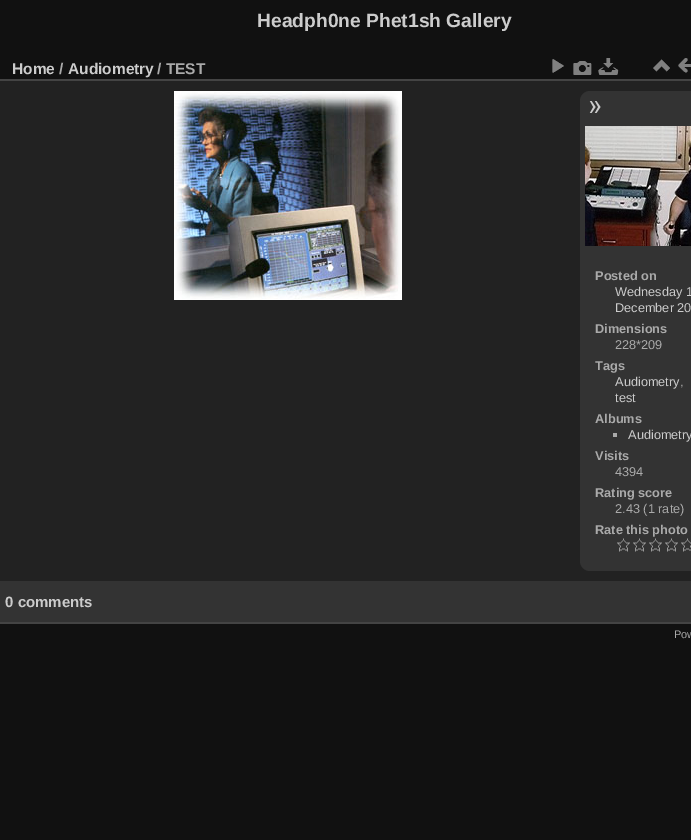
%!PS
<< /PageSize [691 840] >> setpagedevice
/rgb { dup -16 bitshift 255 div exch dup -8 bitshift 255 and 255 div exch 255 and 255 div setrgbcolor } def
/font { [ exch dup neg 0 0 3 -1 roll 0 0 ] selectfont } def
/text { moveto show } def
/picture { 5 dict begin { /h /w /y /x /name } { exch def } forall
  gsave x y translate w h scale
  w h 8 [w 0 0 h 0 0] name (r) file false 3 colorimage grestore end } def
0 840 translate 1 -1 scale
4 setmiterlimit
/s1 { /LiberationSans-Bold 19.25 font 16#CCCCCC rgb } def
/s2 { /LiberationSans-Bold 15.5 font 16#CCCCCC rgb } def
/s3 { /LiberationSans-Bold 15.5 font 16#AAAAAA rgb } def
/s4 { /LiberationSans-Bold 12.75 font 16#AAAAAA rgb } def
/s5 { /LiberationSans-Regular 12.75 font 16#CCCCCC rgb } def
/s6 { /LiberationSans-Regular 12.75 font 16#AAAAAA rgb } def
/s7 { /LiberationSans-Bold 15 font 16#CCCCCC rgb } def
/s8 { /LiberationSans-Regular 11 font 16#AAAAAA rgb } def
16#111111 rgb
0 0 691 840 rectfill
s1
(Headph0ne Phet1sh Gallery) 257 27 text
16#222222 rgb
0 81 691 500 rectfill
16#444444 rgb
0 622 691 2 rectfill
0 79 691 2 rectfill
s2
(Home) 12 74 text
s3
(/) 59 74 text
s2
(Audiometry) 68 74 text
s3
(/ TEST) 157 74 text
(pic1.raw) 552 59 12 14 picture
(pic2.raw) 573 61 19 14 picture
(pic3.raw) 598 58 21 17 picture
(pic4.raw) 653 59 17 13 picture
(pic5.raw) 678 58 13 15 picture
(pic6.raw) 174 91 228 209 picture
16#333333 rgb
590 91 moveto 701 91 lineto 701 571 lineto 590 571 lineto 584.5 571 580 566.5 580 561 curveto 580 101 lineto 580 95.5 584.5 91 590 91 curveto closepath fill
(pic7.raw) 589 101 12 12 picture
(pic8.raw) 585 126 106 120 picture
s4
(Posted on) 595 280 text
s5
(Wednesday 1) 615 296 text
(December 20) 615 312 text
s4
(Dimensions) 595 333 text
s6
(228*209) 615 349 text
s4
(Tags) 595 370 text
s5
(Audiometry) 615 386 text
s6
(,) 680 386 text
s5
(test) 615 402 text
s4
(Albums) 595 423 text
613 433 4 4 rectfill
s5
(Audiometry) 628 439 text
s4
(Visits) 595 460 text
s6
(4394) 615 476 text
s4
(Rating score) 595 497 text
s6
(2.43 \(1 rate\)) 615 513 text
s4
(Rate this photo) 595 534 text
(pic9.raw) 617 538 13 14 picture
(pic9.raw) 633 538 13 14 picture
(pic9.raw) 649 538 13 14 picture
(pic9.raw) 665 538 13 14 picture
(pic10.raw) 681 538 10 14 picture
16#333333 rgb
0 581 691 41 rectfill
s7
(0 comments) 5 607 text
s8
(Pow) 674 638 text
showpage
